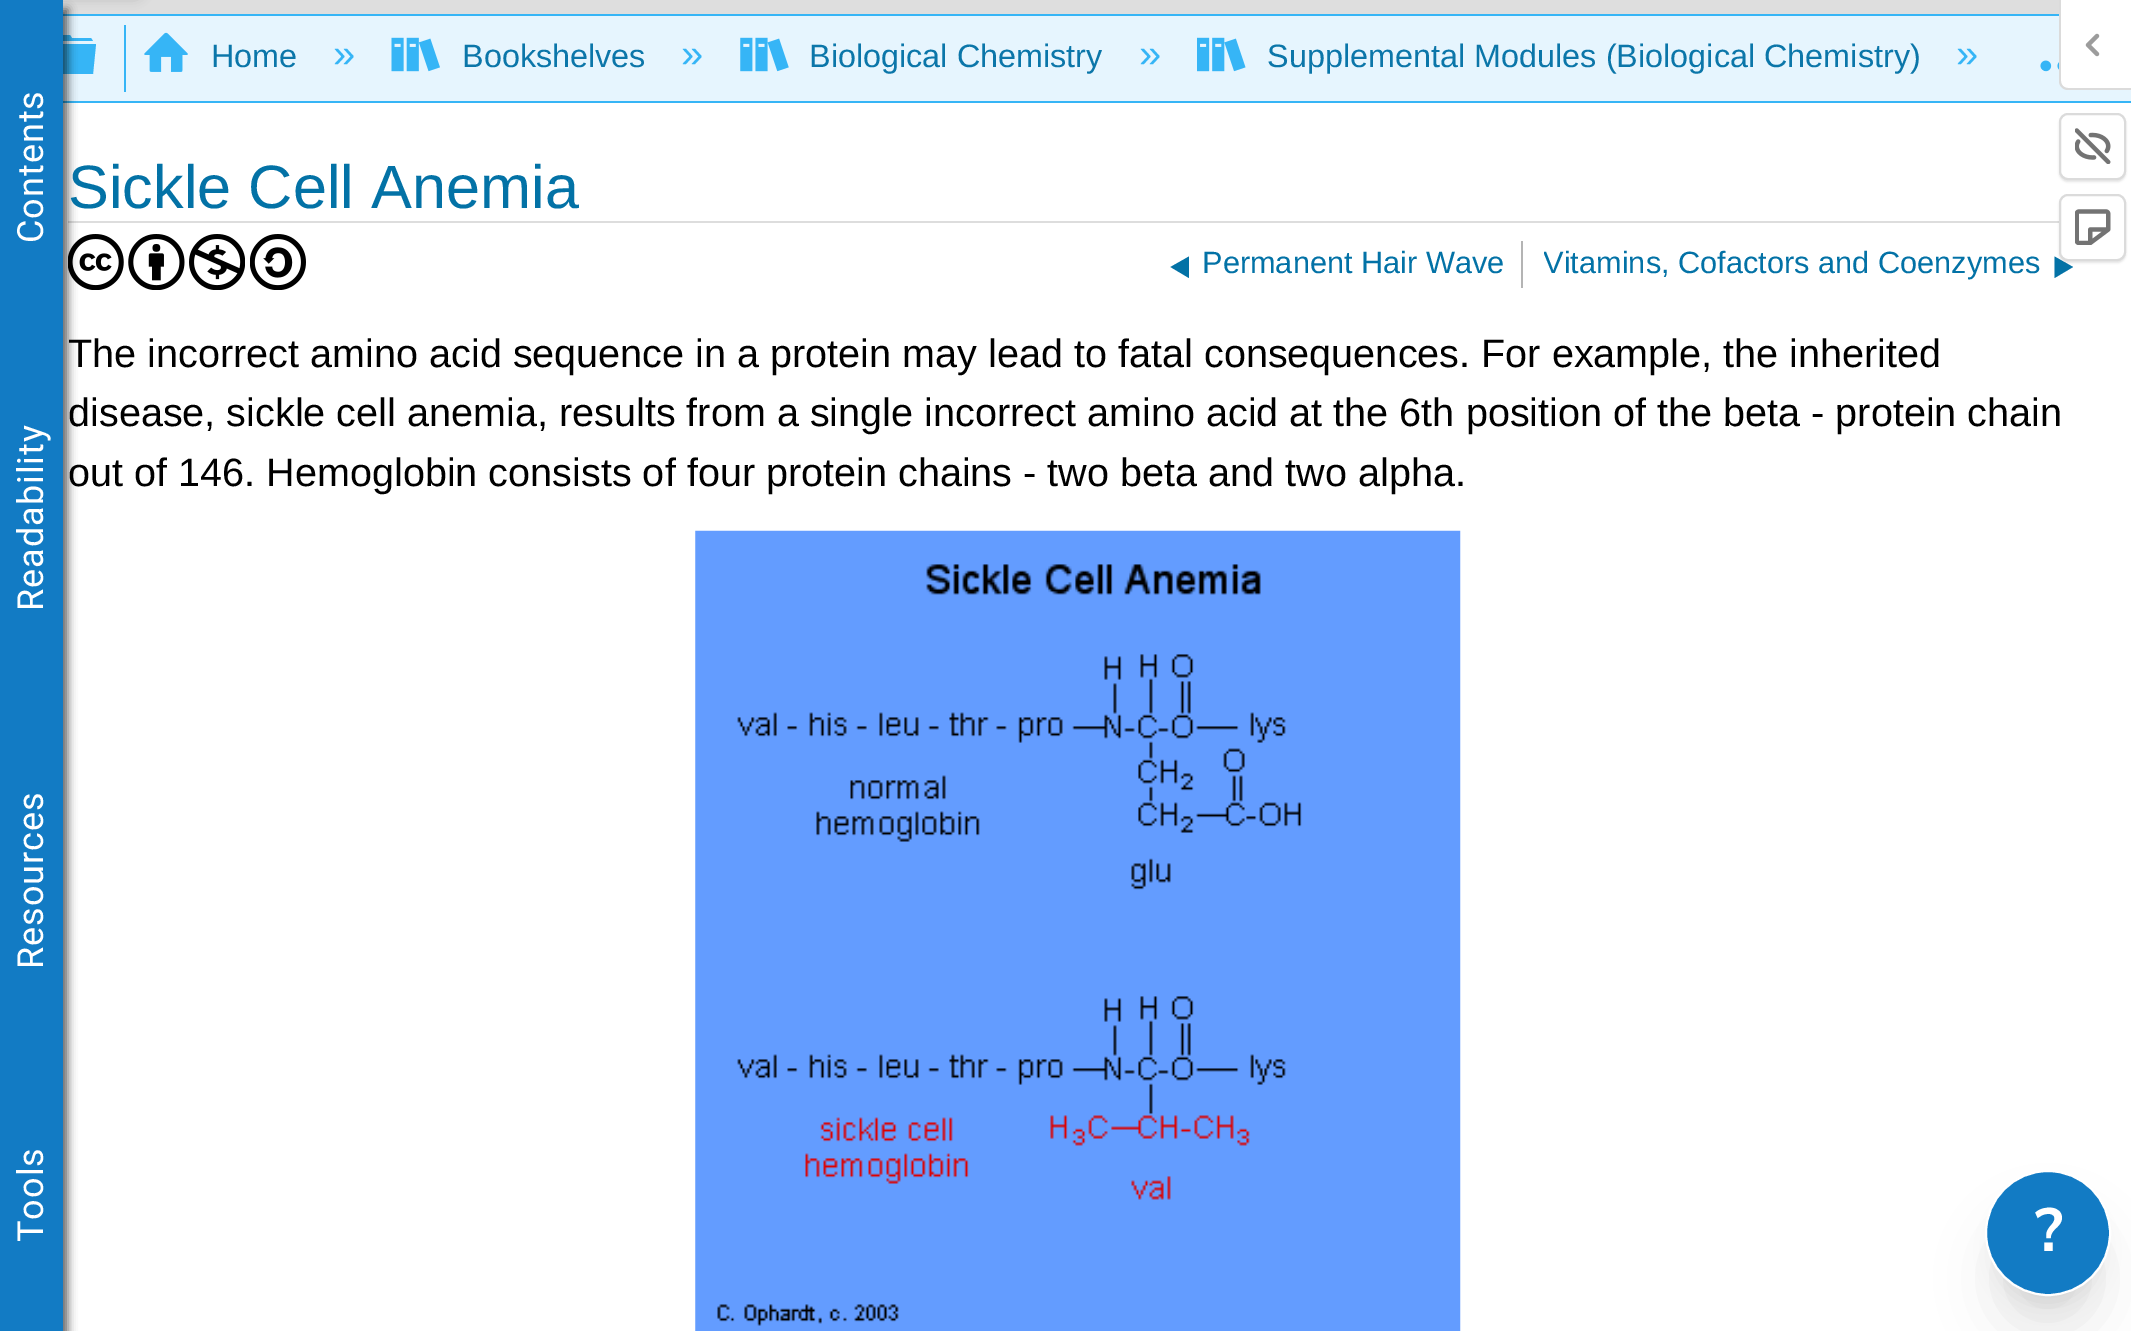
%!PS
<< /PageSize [2131 1331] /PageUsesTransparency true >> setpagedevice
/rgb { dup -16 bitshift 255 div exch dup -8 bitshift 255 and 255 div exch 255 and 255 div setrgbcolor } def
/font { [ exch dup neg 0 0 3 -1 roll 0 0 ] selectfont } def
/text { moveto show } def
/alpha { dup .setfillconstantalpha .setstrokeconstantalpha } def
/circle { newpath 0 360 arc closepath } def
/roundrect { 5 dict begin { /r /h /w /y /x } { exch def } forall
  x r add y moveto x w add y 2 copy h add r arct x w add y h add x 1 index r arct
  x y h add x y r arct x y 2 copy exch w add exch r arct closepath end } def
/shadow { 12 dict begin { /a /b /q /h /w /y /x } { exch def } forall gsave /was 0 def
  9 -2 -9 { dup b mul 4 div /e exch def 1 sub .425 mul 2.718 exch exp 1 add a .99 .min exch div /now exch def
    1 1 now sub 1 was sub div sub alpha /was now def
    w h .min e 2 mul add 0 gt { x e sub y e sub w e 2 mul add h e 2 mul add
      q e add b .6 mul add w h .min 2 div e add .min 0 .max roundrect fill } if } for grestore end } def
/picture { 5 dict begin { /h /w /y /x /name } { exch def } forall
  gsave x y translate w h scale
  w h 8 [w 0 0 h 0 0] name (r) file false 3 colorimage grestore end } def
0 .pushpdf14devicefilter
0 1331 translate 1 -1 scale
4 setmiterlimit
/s1 { /LiberationSans-Regular 32.4 font 16#0B76A9 rgb } def
/s2 { /LiberationSans-Regular 40 font 16#36B5F6 rgb } def
/s3 { /LiberationSans-Regular 61.25 font 16#0372A6 rgb } def
/s4 { /LiberationSans-Regular 30.75 font 16#0372A6 rgb } def
/s5 { /LiberationSans-Regular 39.6 font 16#000000 rgb } def
/s6 { /NunitoSans-Bold 61 font 16#FFFFFF rgb } def
16#FFFFFF rgb
0 0 2131 1331 rectfill
16#DEDEDE rgb
63 0 1996 14 rectfill
16#E6F5FE rgb
63 16 2068 85 rectfill
16#36B5F6 rgb
63 14 1996 2 rectfill
63 101 2068 2 rectfill
47 44 moveto 96 44 lineto 93 74 lineto 50 74 lineto closepath 91 38 moveto 93 41 lineto 50 41 lineto 53 35 lineto 70 35 lineto 72 38 lineto closepath fill
16#DDDDDD rgb
68 221 1991 2 rectfill
(pic6.raw) 68 234 56 56 picture
16#000000 rgb
5 9 63 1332 0 4.5 0.6 shadow
16#080808 rgb
50 -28 94 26 11 5.5 0.2 shadow
16#127BC4 rgb
0 0 63 1331 rectfill
/Roboto-Regular 36 font
16#FFFFFF rgb
gsave 43 243 translate -90 rotate 0 0 moveto 1 0 (Contents) ashow grestore
gsave 43 611 translate -90 rotate 0 0 moveto 1 0 (Readability) ashow grestore
gsave 43 969 translate -90 rotate 0 0 moveto 1 0 (Resources) ashow grestore
gsave 43 1242 translate -90 rotate 0 0 moveto 1 0 (Tools) ashow grestore
16#36B5F6 rgb
124 25 2 67 rectfill
(pic1.raw) 144 32 44 40 picture
s1
(Home) 211 67 text
s2
(») 333 67 text
(pic2.raw) 391 37 49 35 picture
s1
(Bookshelves) 462 67 text
s2
(») 681 67 text
(pic3.raw) 740 37 49 35 picture
s1
(Biological Chemistry) 809 67 text
s2
(») 1139 67 text
(pic4.raw) 1197 37 49 35 picture
s1
(Supplemental Modules \(Biological Chemistry\)) 1267 67 text
s2
(») 1956 67 text
(pic5.raw) 2040 60 19 12 picture
s3
(Sickle Cell Anemia) 68 208 text
(pic7.raw) 128 234 57 56 picture
(pic8.raw) 189 234 56 56 picture
(pic9.raw) 250 234 56 56 picture
16#B4B4B4 rgb
1521 241 2 47 rectfill
16#0372A6 rgb
1189 256.5 moveto 1189 278 lineto 1170.5 267 lineto closepath fill
s4
(Permanent Hair Wave) 1202 273 text
gsave
1544 245 497 39 rectclip
(Vitamins, Cofactors and Coenzymes) 1543 273 text
grestore
2054.5 256.5 moveto 2054.5 278 lineto 2073 267 lineto closepath fill
s5
(The incorrect amino acid sequence in a protein may lead to fatal consequences. For example, the inherited) 68 367 text
(disease, sickle cell anemia, results from a single incorrect amino acid at the 6th position of the beta - protein chain) 68 426 text
(out of 146. Hemoglobin consists of four protein chains - two beta and two alpha.) 68 486 text
(pic10.raw) 695 530 766 801 picture
1998 1202 99 99 49.5 11 0.1 shadow
1996 1226 103 104 51.5 28 0.1 shadow
16#127BC4 rgb
2048 1233 62 circle gsave fill grestore
16#FFFFFF rgb
2 setlinewidth
stroke
s6
(?) 2035 1251 text
2061 0 moveto 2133 0 lineto 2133 88 lineto 2068 88 lineto 2064 88 2061 85 2061 81 curveto closepath fill
16#DBDBDB rgb
2059 0 moveto 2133 0 lineto 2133 90 lineto 2068 90 lineto 2063 90 2059 86 2059 81 curveto closepath 2061 0 moveto 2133 0 lineto 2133 88 lineto 2068 88 lineto 2064 88 2061 85 2061 81 curveto closepath eofill
(pic11.raw) 2085 33 15 24 picture
16#000000 rgb
2059 115 67 67 9 1 0.1 shadow
16#FFFFFF rgb
2060 114 65 65 8 roundrect gsave fill grestore
16#DBDBDB rgb
stroke
(pic12.raw) 2075 128 36 36 picture
16#000000 rgb
2059 196 67 67 9 1 0.1 shadow
16#FFFFFF rgb
2060 195 65 65 8 roundrect gsave fill grestore
16#DBDBDB rgb
stroke
(pic13.raw) 2075 209 36 36 picture
.poppdf14devicefilter showpage
